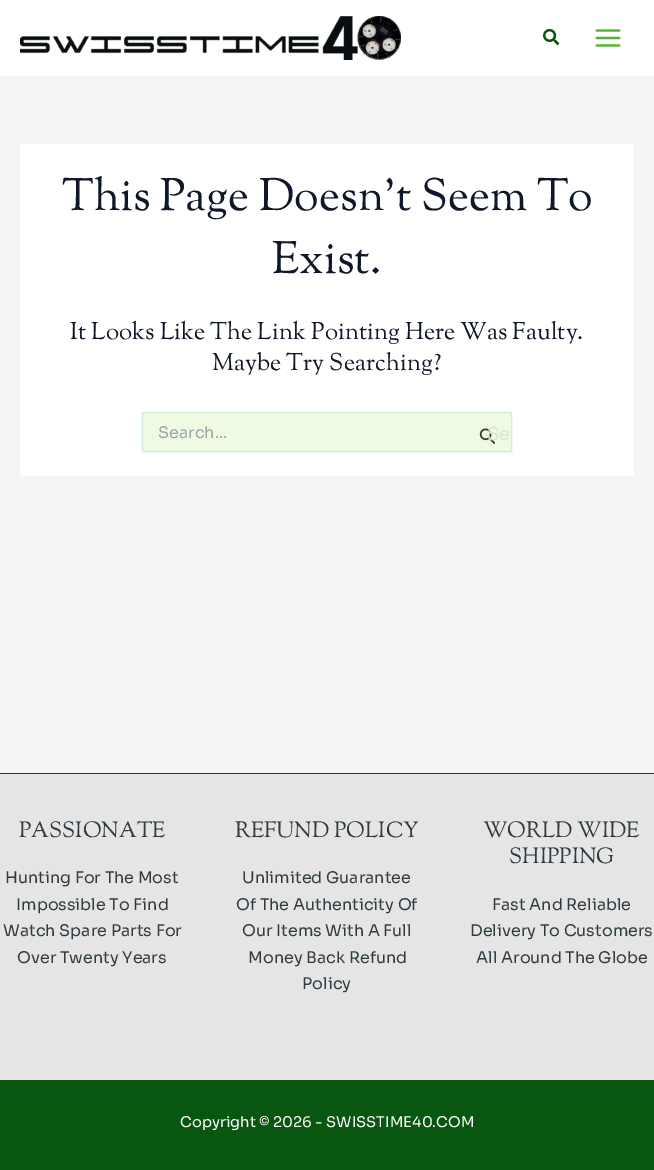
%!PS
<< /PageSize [654 1170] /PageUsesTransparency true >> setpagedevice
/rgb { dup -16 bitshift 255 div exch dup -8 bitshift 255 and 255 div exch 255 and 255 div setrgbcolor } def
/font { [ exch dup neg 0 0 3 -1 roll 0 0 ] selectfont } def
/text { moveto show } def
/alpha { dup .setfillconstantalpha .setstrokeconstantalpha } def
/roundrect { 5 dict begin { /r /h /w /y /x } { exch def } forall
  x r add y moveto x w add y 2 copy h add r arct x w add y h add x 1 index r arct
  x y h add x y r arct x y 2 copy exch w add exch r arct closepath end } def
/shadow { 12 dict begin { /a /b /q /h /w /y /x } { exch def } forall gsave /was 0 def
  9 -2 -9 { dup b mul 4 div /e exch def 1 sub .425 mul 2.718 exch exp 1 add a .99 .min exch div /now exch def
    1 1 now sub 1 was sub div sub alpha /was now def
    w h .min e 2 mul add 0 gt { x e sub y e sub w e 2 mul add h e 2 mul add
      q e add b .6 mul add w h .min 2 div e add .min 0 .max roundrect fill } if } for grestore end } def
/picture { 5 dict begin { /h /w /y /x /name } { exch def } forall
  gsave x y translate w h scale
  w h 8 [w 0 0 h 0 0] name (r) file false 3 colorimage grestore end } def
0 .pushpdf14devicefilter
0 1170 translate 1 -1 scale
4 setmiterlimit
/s1 { /SortsMillGoudy-Regular 45 font 16#0F172A rgb } def
/s2 { /SortsMillGoudy-Regular 24 font 16#0F172A rgb } def
/s3 { /Sora-Regular 16 font 16#9CA3AF rgb } def
/s4 { /Sora-Regular 18 font 16#D8E5CF rgb } def
/s5 { /SortsMillGoudy-Regular 22 font 16#2F3B40 rgb } def
/s6 { /Sora-Regular 16 font 16#2F3B40 rgb } def
/s7 { /Sora-Regular 14.7 font 16#FFFFFF rgb } def
16#F5F5F5 rgb
0 0 654 1170 rectfill
16#FFFFFF rgb
0 0 654 76 rectfill
(pic1.raw) 20 16 381 44 picture
(pic2.raw) 543 28 17 17 picture
(pic3.raw) 595 29 26 18 picture
20 144 614 332 rectfill
s1
(This Page Doesn't Seem To) 62 210 text
(Exist.) 272 273 text
s2
(It Looks Like The Link Pointing Here Was Faulty.) 70 339 text
(Maybe Try Searching?) 212 370 text
16#000000 rgb
142 413 370 40 2 1 0.05 shadow
16#EDFBE2 rgb
142.5 412.5 369 39 1.5 roundrect gsave fill grestore
16#D5EAD8 rgb
stroke
s3
(Search...) 158 438 text
(pic4.raw) 479 428 16 17 picture
s4
(Se) 487 440 text
16#E5E5E5 rgb
0 774 654 306 rectfill
16#08560F rgb
0 773 654 1 rectfill
s5
(PASSIONATE) 19 837 text
s6
(Hunting For The Most) 5 883 text
(Impossible To Find) 16 910 text
(Watch Spare Parts For) 3 936 text
(Over Twenty Years) 17 963 text
s5
(REFUND POLICY) 235 837 text
s6
(Unlimited Guarantee) 242 883 text
(Of The Authenticity Of) 236 910 text
(Our Items With A Full) 242 936 text
(Money Back Refund) 248 963 text
(Policy) 302 989 text
s5
(WORLD WIDE) 483 837 text
(SHIPPING) 509 863 text
s6
(Fast And Reliable) 492 910 text
(Delivery To Customers) 470 936 text
(All Around The Globe) 476 963 text
16#08560F rgb
0 1080 654 90 rectfill
s7
(Copyright © 2026 - SWISSTIME40.COM) 180 1127 text
.poppdf14devicefilter showpage
